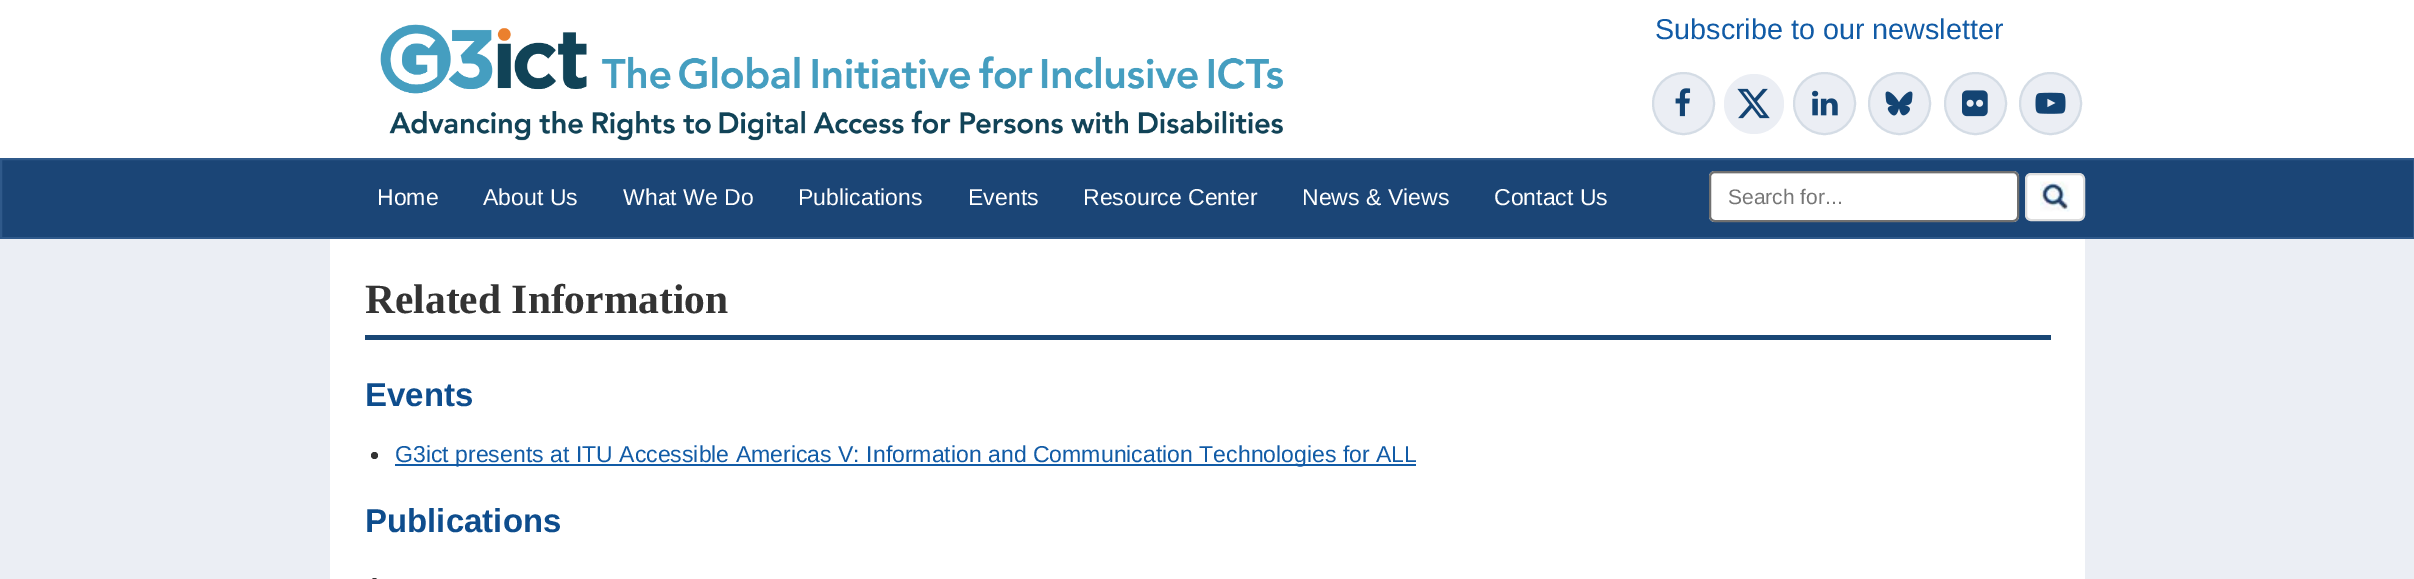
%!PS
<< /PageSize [2414 579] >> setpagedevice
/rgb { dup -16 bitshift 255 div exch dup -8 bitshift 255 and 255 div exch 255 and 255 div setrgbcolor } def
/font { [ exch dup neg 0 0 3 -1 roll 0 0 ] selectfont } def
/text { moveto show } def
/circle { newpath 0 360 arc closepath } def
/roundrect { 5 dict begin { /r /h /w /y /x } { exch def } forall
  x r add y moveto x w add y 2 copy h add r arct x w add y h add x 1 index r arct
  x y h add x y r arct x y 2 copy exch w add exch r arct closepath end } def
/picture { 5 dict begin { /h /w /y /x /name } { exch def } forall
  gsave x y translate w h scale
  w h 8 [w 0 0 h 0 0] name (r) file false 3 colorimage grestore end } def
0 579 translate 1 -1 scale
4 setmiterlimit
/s1 { /LiberationSans-Regular 28.75 font 16#115BA6 rgb } def
/s2 { /LiberationSans-Regular 23.05 font 16#FFFFFF rgb } def
/s3 { /LiberationSans-Regular 21 font 16#767676 rgb } def
/s4 { /LiberationSerif-Bold 41.5 font 16#333333 rgb } def
/s5 { /LiberationSans-Bold 33 font 16#0E4D8D rgb } def
/s6 { /LiberationSans-Regular 23.05 font 16#115BA6 rgb } def
16#FFFFFF rgb
0 0 2414 579 rectfill
(pic1.raw) 380 24 903 117 picture
s1
(Subscribe to our newsletter) 1655 39 text
16#EBEEF4 rgb
1683.5 103.5 30.5 circle gsave fill grestore
16#D4DCE5 rgb
2 setlinewidth
stroke
(pic2.raw) 1675 88 16 29 picture
16#EBEEF4 rgb
1754 104 30 circle fill
1824.5 103.5 30.5 circle gsave fill grestore
16#D4DCE5 rgb
stroke
(pic3.raw) 1812 90 26 26 picture
16#EBEEF4 rgb
1899.5 103.5 30.5 circle gsave fill grestore
16#D4DCE5 rgb
stroke
(pic4.raw) 1885 91 28 25 picture
16#EBEEF4 rgb
1975.5 103.5 30.5 circle gsave fill grestore
16#D4DCE5 rgb
stroke
(pic5.raw) 1962 90 26 27 picture
16#EBEEF4 rgb
2050.5 103.5 30.5 circle gsave fill grestore
16#D4DCE5 rgb
stroke
(pic6.raw) 2035 92 31 22 picture
(pic7.raw) 1737 88 33 31 picture
16#1B4576 rgb
1 159 moveto 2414 159 lineto 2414 238 lineto 1 238 lineto closepath gsave fill grestore
16#2F598A rgb
stroke
s2
(Home) 377 205 text
(About Us) 483 205 text
(What We Do) 623 205 text
(Publications) 798 205 text
(Events) 968 205 text
(Resource Center) 1083 205 text
(News & Views) 1302 205 text
(Contact Us) 1494 205 text
1709 171 310 51 6 roundrect fill
16#ECECEC rgb
1714 174 moveto 2013 174 lineto 2015 174 2018 176 2018 178 curveto 2018 175 2016 173 2013 173 curveto 1715 173 lineto 1712 173 1710 175 1710 178 curveto 1710 176 1712 174 1714 174 curveto closepath fill
16#707070 rgb
1710 172 308 49 5 roundrect stroke
s3
(Search for...) 1728 204 text
16#FFFFFF rgb
2026 174 58 46 5 roundrect gsave fill grestore
16#DDDDDD rgb
stroke
(pic8.raw) 2040 181 30 31 picture
16#EBEEF4 rgb
0 239 2414 340 rectfill
16#FFFFFF rgb
330 239 1755 340 rectfill
16#194775 rgb
365 335 1686 5 rectfill
s4
(Related Information) 365 313 text
s5
(Events) 365 406 text
16#333333 rgb
374.5 455.5 3.5 circle fill
16#115BA6 rgb
395 464 1021 2 rectfill
s6
(G3ict presents at ITU Accessible Americas V: Information and Communication Technologies for ALL) 395 462 text
s5
(Publications) 365 532 text
16#333333 rgb
371 578 7 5 3.5 roundrect fill
showpage
